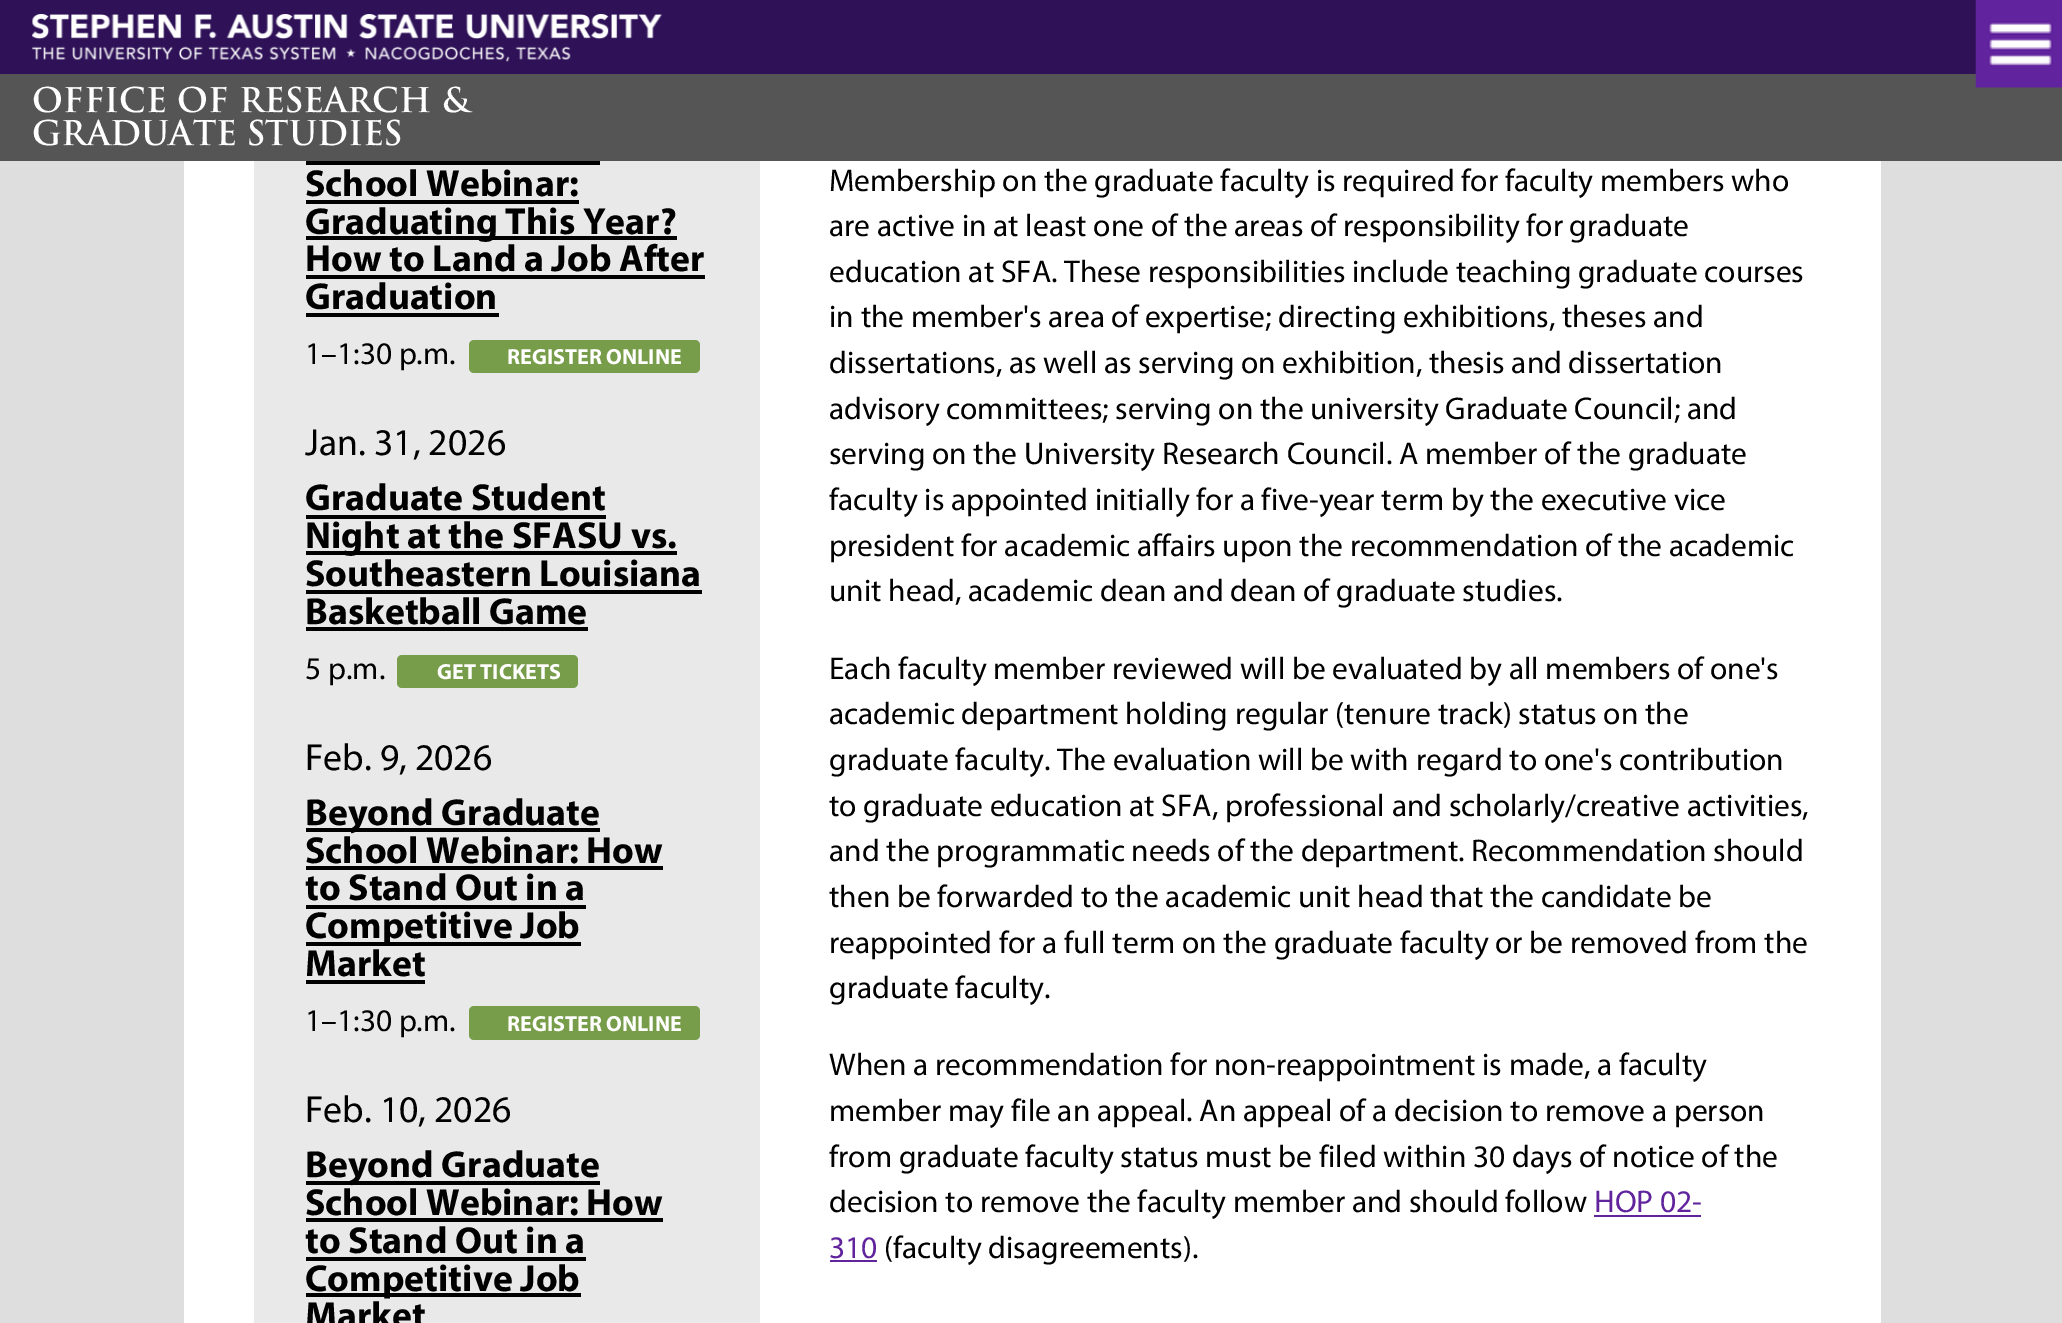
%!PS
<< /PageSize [2062 1323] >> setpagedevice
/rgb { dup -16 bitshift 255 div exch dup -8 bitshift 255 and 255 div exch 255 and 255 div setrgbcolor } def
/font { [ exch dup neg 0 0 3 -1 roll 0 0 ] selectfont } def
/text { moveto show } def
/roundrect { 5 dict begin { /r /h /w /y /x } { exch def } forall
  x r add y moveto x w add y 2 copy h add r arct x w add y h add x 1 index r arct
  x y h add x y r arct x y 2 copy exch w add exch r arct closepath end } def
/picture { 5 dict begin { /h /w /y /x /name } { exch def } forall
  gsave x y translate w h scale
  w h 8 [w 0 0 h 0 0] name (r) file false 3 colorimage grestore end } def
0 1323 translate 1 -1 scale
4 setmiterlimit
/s1 { /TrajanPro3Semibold-SemiBold 33.25 font 16#FFFFFF rgb } def
/s2 { /Myriad-Bold 37.75 font 16#000000 rgb } def
/s3 { /Myriad-Regular 31.5 font 16#000000 rgb } def
/s4 { /Myriad-Bold 22 font 16#FFFFFF rgb } def
/s5 { /Myriad-Regular 37.75 font 16#000000 rgb } def
/s6 { /Myriad-Regular 31.5 font 16#61249D rgb } def
16#DEDEDE rgb
0 0 2062 1323 rectfill
16#2E1157 rgb
0 0 1976 74 rectfill
(pic1.raw) 32 14 630 48 picture
16#555555 rgb
0 74 2062 87 rectfill
(pic2.raw) 1975 0 87 88 picture
s1
(OFFICE OF RESEARCH &) 32 112 text
(GRADUATE STUDIES) 32 145 text
184 161 1697 1162 rectfill
16#EAE9E9 rgb
254 161 506 1162 rectfill
s2
(School Webinar:) 305 196 text
306 161 294 4 rectfill
306 200 273 4 rectfill
306 236 371 4 rectfill
(Graduating This Year?) 305 234 text
(How to Land a Job After) 305 271 text
(Graduation) 305 309 text
306 275 399 4 rectfill
306 313 193 4 rectfill
s3
(1–1:30 p.m.) 305 364 text
16#789D4A rgb
469 340 231 33 5 roundrect fill
s4
(REGISTER ONLINE) 507 364 text
s5
(Jan. 31, 2026) 305 455 text
s2
(Graduate Student) 305 510 text
306 515 300 4 rectfill
306 551 371 4 rectfill
(Night at the SFASU vs.) 305 548 text
(Southeastern Louisiana) 305 586 text
306 590 396 4 rectfill
(Basketball Game) 305 624 text
306 627 282 4 rectfill
s3
(5 p.m.) 305 679 text
16#789D4A rgb
397 655 181 33 5 roundrect fill
s4
(GET TICKETS) 437 679 text
s5
(Feb. 9, 2026) 305 770 text
306 828 294 4 rectfill
s2
(Beyond Graduate) 305 825 text
(School Webinar: How) 305 863 text
306 866 357 4 rectfill
(to Stand Out in a) 305 900 text
306 905 280 4 rectfill
306 942 275 4 rectfill
(Competitive Job) 305 938 text
(Market) 305 976 text
306 980 119 4 rectfill
s3
(1–1:30 p.m.) 305 1031 text
16#789D4A rgb
469 1006 231 34 5 roundrect fill
s4
(REGISTER ONLINE) 507 1031 text
s5
(Feb. 10, 2026) 305 1122 text
306 1181 294 4 rectfill
s2
(Beyond Graduate) 305 1177 text
(School Webinar: How) 305 1215 text
306 1218 357 4 rectfill
(to Stand Out in a) 305 1253 text
306 1257 280 4 rectfill
306 1293 275 4 rectfill
(Competitive Job) 305 1291 text
(Market) 305 1328 text
s3
(Membership on the graduate faculty is required for faculty members who) 829 191 text
(are active in at least one of the areas of responsibility for graduate) 829 236 text
(education at SFA. These responsibilities include teaching graduate courses) 829 282 text
(in the member's area of expertise; directing exhibitions, theses and) 829 327 text
(dissertations, as well as serving on exhibition, thesis and dissertation) 829 373 text
(advisory committees; serving on the university Graduate Council; and) 829 419 text
(serving on the University Research Council. A member of the graduate) 829 464 text
(faculty is appointed initially for a five-year term by the executive vice) 829 510 text
(president for academic affairs upon the recommendation of the academic) 829 556 text
(unit head, academic dean and dean of graduate studies.) 829 601 text
(Each faculty member reviewed will be evaluated by all members of one's) 829 679 text
(academic department holding regular \(tenure track\) status on the) 829 724 text
(graduate faculty. The evaluation will be with regard to one's contribution) 829 770 text
(to graduate education at SFA, professional and scholarly/creative activities,) 829 816 text
(and the programmatic needs of the department. Recommendation should) 829 861 text
(then be forwarded to the academic unit head that the candidate be) 829 907 text
(reappointed for a full term on the graduate faculty or be removed from the) 829 953 text
(graduate faculty.) 829 998 text
(When a recommendation for non-reappointment is made, a faculty) 829 1075 text
(member may file an appeal. An appeal of a decision to remove a person) 829 1121 text
(from graduate faculty status must be filed within 30 days of notice of the) 829 1167 text
(decision to remove the faculty member and should follow) 829 1212 text
s6
(HOP 02-) 1594 1212 text
1594 1215 107 2 rectfill
(310) 829 1258 text
830 1260 47 2 rectfill
s3
(\(faculty disagreements\).) 884 1258 text
showpage
